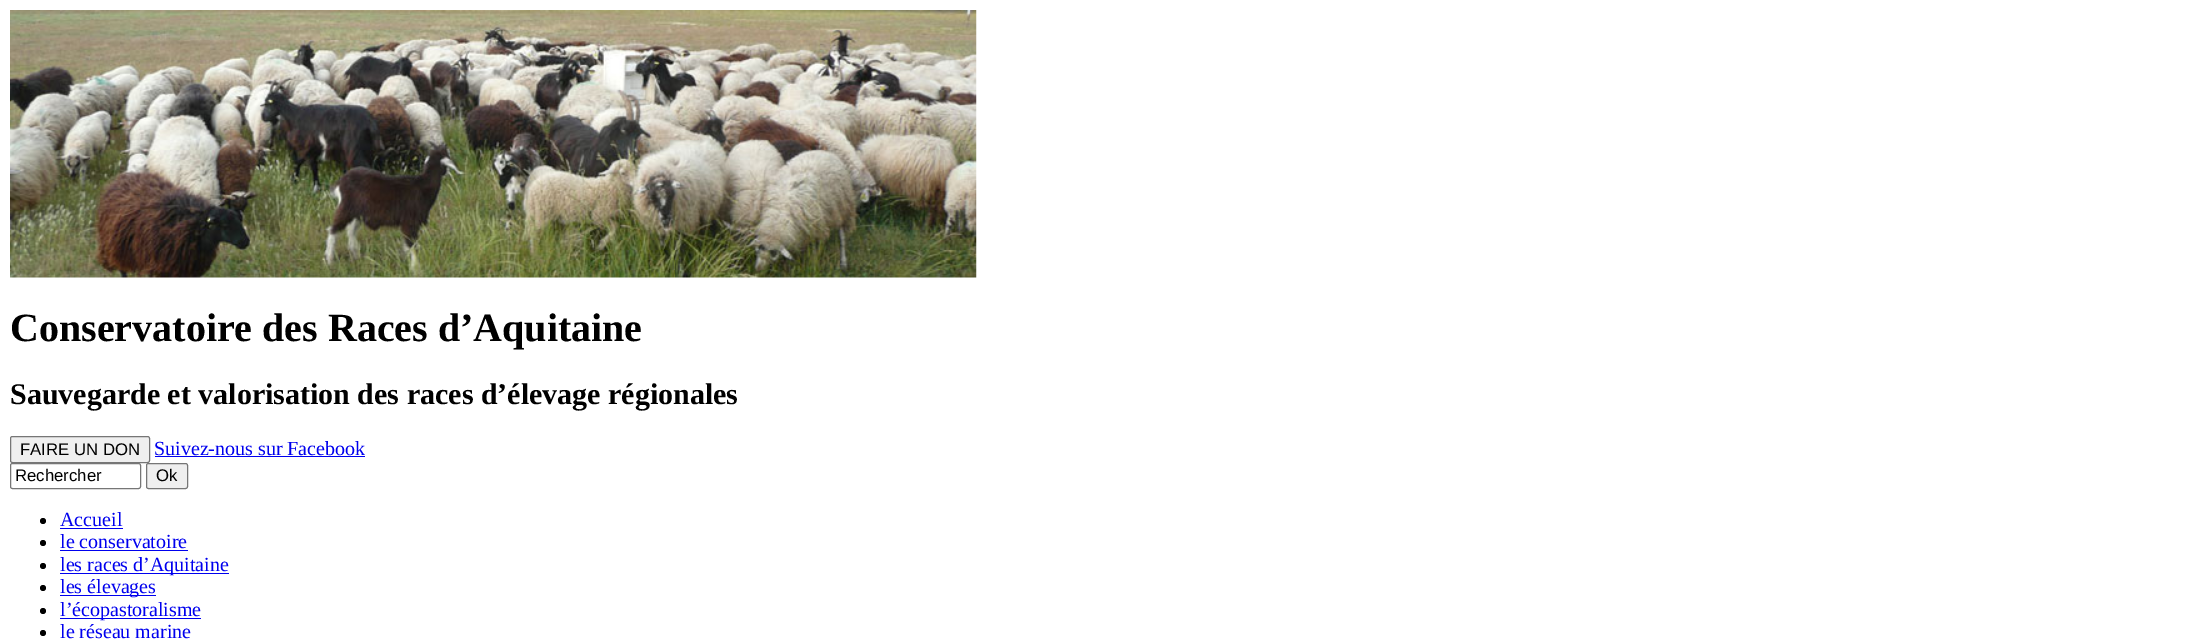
%!PS
<< /PageSize [2187 640] >> setpagedevice
/rgb { dup -16 bitshift 255 div exch dup -8 bitshift 255 and 255 div exch 255 and 255 div setrgbcolor } def
/font { [ exch dup neg 0 0 3 -1 roll 0 0 ] selectfont } def
/text { moveto show } def
/circle { newpath 0 360 arc closepath } def
/roundrect { 5 dict begin { /r /h /w /y /x } { exch def } forall
  x r add y moveto x w add y 2 copy h add r arct x w add y h add x 1 index r arct
  x y h add x y r arct x y 2 copy exch w add exch r arct closepath end } def
/picture { 5 dict begin { /h /w /y /x /name } { exch def } forall
  gsave x y translate w h scale
  w h 8 [w 0 0 h 0 0] name (r) file false 3 colorimage grestore end } def
0 640 translate 1 -1 scale
4 setmiterlimit
/s1 { /LiberationSerif-Bold 40 font 16#000000 rgb } def
/s2 { /LiberationSerif-Bold 30 font 16#000000 rgb } def
/s3 { /LiberationSans-Regular 16.75 font 16#000000 rgb } def
/s4 { /LiberationSerif-Regular 20 font 16#0000EE rgb } def
16#FFFFFF rgb
0 0 2187 640 rectfill
(pic1.raw) 10 10 967 268 picture
s1
(Conservatoire des Races d’Aquitaine) 10 341 text
s2
(Sauvegarde et valorisation des races d’élevage régionales) 10 404 text
16#EFEFEF rgb
10.5 436.5 139 26 2 roundrect gsave fill grestore
16#767676 rgb
stroke
s3
(FAIRE UN DON) 20 455 text
s4
(Suivez-nous sur Facebook) 154 455 text
155 456 210 1 rectfill
16#767676 rgb
10.5 463.5 130 25 2 roundrect stroke
s3
(Rechercher) 15 481 text
16#EFEFEF rgb
146.5 463.5 41 25 2 roundrect gsave fill grestore
16#767676 rgb
stroke
s3
(Ok) 156 481 text
43 521 3 circle fill
s4
(Accueil) 60 526 text
60 528 63 1 rectfill
16#000000 rgb
43 543 3 circle fill
s4
(le conservatoire) 60 548 text
60 550 128 1 rectfill
16#000000 rgb
43 566 3 circle fill
16#0000EE rgb
60 573 169 1 rectfill
(les races d’Aquitaine) 60 571 text
16#000000 rgb
43 588 3 circle fill
16#0000EE rgb
60 595 96 1 rectfill
(les élevages) 60 593 text
16#000000 rgb
43 611 3 circle fill
16#0000EE rgb
60 618 141 1 rectfill
(l’écopastoralisme) 60 616 text
16#000000 rgb
43 633 3 circle fill
s4
(le réseau marine) 60 638 text
showpage
